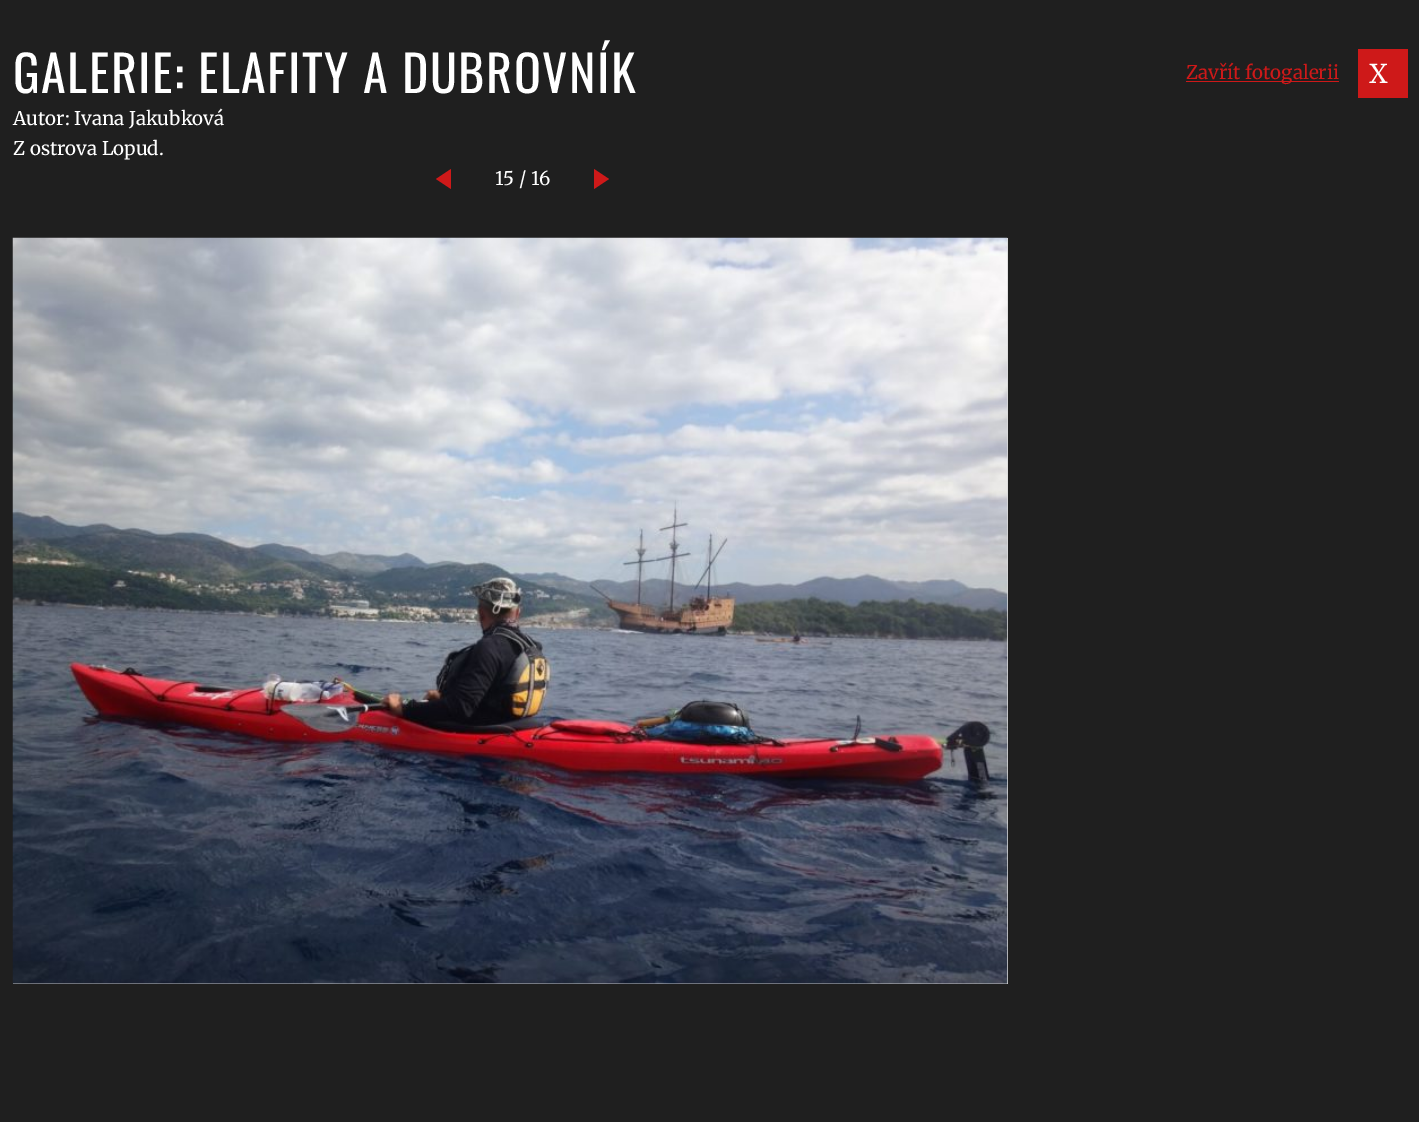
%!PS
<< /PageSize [1419 1122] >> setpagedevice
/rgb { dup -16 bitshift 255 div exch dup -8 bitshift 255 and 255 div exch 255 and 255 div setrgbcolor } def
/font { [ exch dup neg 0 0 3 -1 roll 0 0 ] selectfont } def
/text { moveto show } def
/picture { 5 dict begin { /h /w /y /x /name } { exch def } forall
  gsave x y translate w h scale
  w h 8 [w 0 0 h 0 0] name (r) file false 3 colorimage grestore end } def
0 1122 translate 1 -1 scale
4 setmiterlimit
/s1 { /Merriweather-Regular 18.75 font 16#FFFFFF rgb } def
/s2 { /Merriweather-Regular 18.75 font 16#CE1919 rgb } def
16#1F1F1F rgb
0 0 1419 1122 rectfill
/Oswald-Regular 50 font
16#FFFFFF rgb
13 93 moveto 1.5 0 (GALERIE: ELAFITY A DUBROVNÍK) ashow
s1
(Autor: Ivana Jakubková) 13 125 text
(Z ostrova Lopud.) 13 155 text
16#CE1919 rgb
451 169 moveto 451 189 lineto 436 179 lineto closepath fill
s1
(15 / 16) 495 185 text
16#CE1919 rgb
594 189 moveto 594 169 lineto 609 179 lineto closepath fill
1186 81 153 1 rectfill
(Zavřít fotogalerii) 1186 79 text
1358 49 50 49 rectfill
/Merriweather-Regular 26 font
16#FFFFFF rgb
1369 83 moveto 8 0 (X) ashow
16#DADADA rgb
13 238 995 746 rectfill
(pic1.raw) 12 237 996 747 picture
showpage
